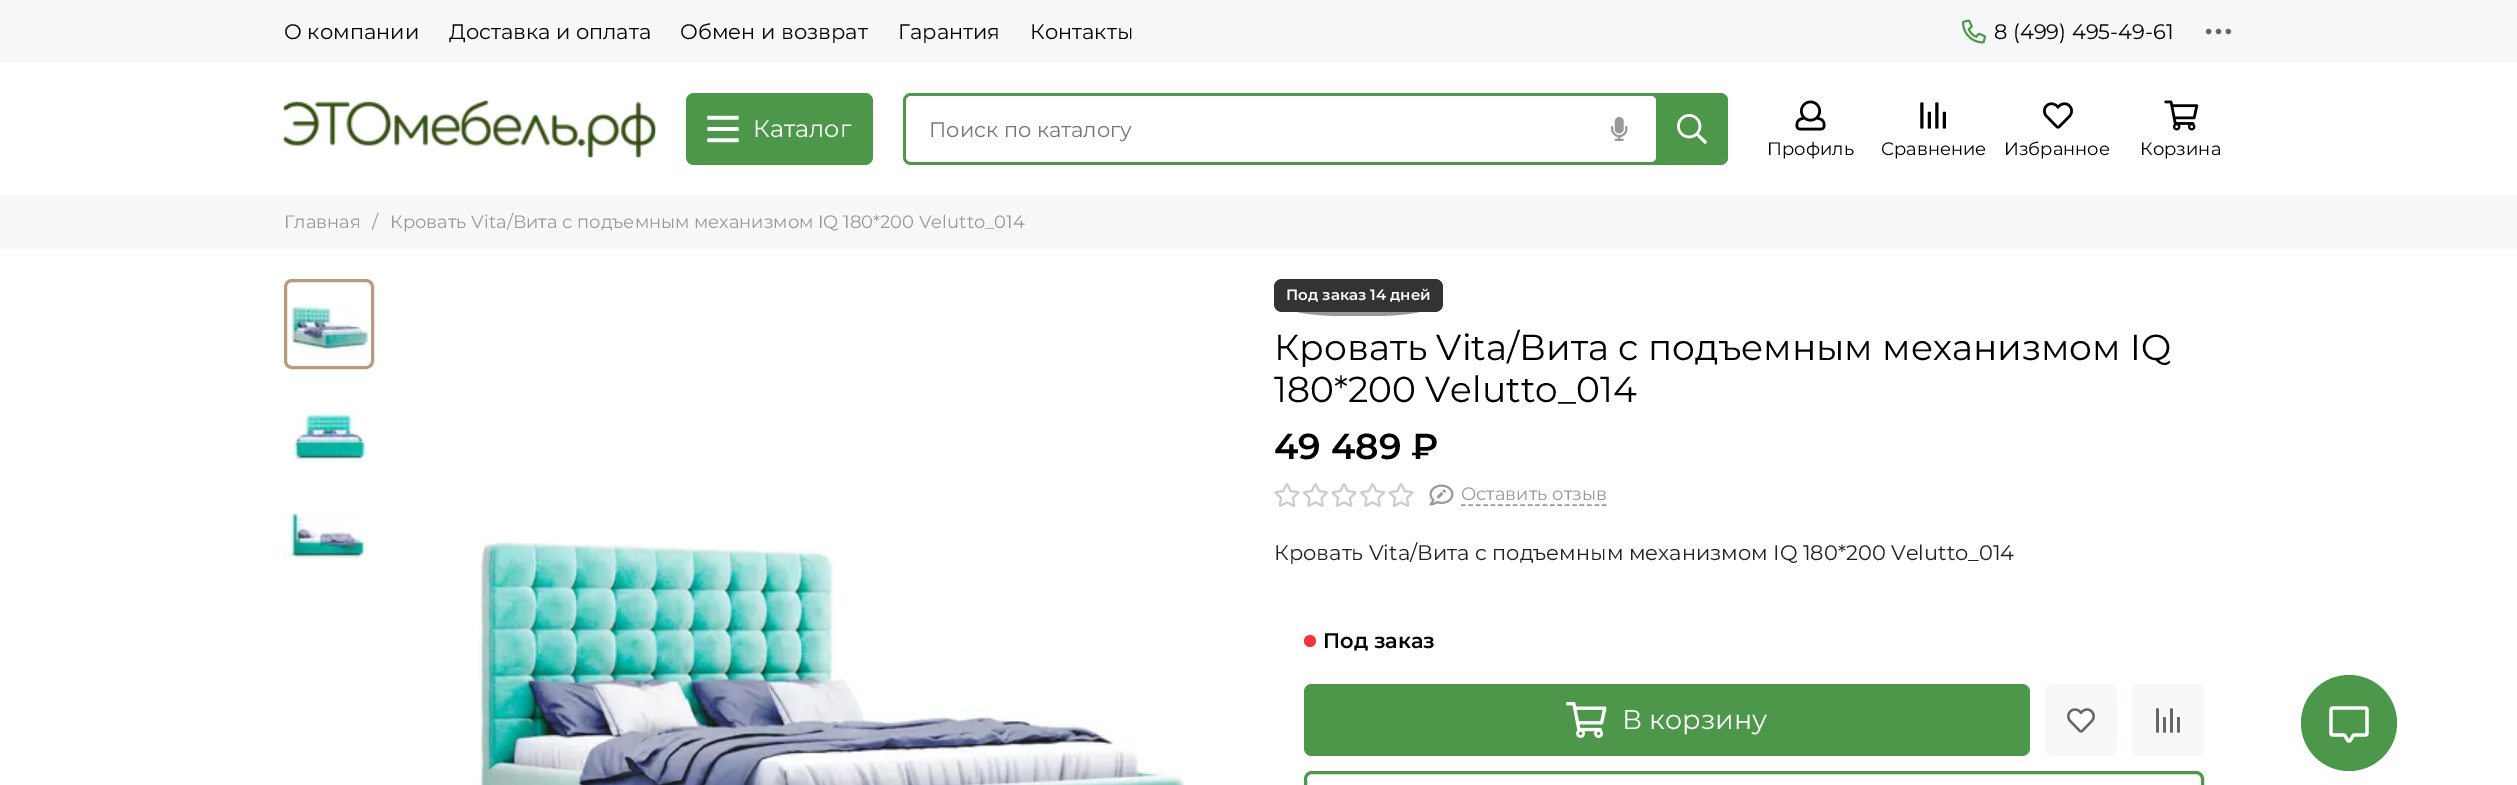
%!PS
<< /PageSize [2517 785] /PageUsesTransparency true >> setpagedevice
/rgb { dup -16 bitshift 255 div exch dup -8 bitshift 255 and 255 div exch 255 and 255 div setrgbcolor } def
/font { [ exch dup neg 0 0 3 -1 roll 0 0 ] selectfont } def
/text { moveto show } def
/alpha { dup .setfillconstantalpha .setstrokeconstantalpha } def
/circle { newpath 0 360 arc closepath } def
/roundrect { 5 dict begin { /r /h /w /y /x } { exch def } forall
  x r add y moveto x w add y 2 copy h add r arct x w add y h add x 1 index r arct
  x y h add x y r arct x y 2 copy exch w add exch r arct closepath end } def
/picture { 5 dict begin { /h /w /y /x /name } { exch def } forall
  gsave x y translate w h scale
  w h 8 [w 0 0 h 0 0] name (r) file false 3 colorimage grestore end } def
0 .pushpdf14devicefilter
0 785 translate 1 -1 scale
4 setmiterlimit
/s1 { /Montserrat-Regular 21 font 16#000000 rgb } def
/s2 { /Montserrat-Regular 24 font 16#FFFFFF rgb } def
/s3 { /Montserrat-Regular 21 font 16#757575 rgb } def
/s4 { /Montserrat-Regular 18 font 16#000000 rgb } def
/s5 { /Montserrat-Regular 18 font 16#999999 rgb } def
/s6 { /Montserrat-SemiBold 15 font 16#FFFFFF rgb } def
/s7 { /Montserrat-Regular 36 font 16#000000 rgb } def
/s8 { /Montserrat-SemiBold 36 font 16#000000 rgb } def
/s9 { /Montserrat-Regular 21 font 16#222222 rgb } def
/s10 { /Montserrat-SemiBold 21 font 16#000000 rgb } def
/s11 { /Montserrat-Regular 27 font 16#FFFFFF rgb } def
16#FFFFFF rgb
0 0 2517 785 rectfill
16#F7F8FA rgb
0 0 2517 63 rectfill
s1
(О компании) 284 39 text
(Доставка и оплата) 449 39 text
(Обмен и возврат) 680 39 text
(Гарантия) 898 39 text
(Контакты) 1030 39 text
(pic1.raw) 1962 19 24 25 picture
(8 \(499\) 495-49-61) 1994 39 text
(pic2.raw) 2205 28 27 7 picture
(pic3.raw) 283 100 373 58 picture
16#4D974A rgb
686 93 187 72 8 roundrect fill
(pic4.raw) 707 115 32 28 picture
s2
(Каталог) 753 137 text
16#4D974A rgb
903 93 825 72 8 roundrect fill
16#FFFFFF rgb
906 96 750 66 5 roundrect fill
s3
(Поиск по каталогу) 929 137 text
(pic5.raw) 1611 117 17 24 picture
16#4D974A rgb
1656 93 moveto 1720 93 lineto 1724.5 93 1728 96.5 1728 101 curveto 1728 157 lineto 1728 161.5 1724.5 165 1720 165 curveto 1656 165 lineto closepath fill
(pic6.raw) 1677 114 30 30 picture
(pic7.raw) 1795 100 31 31 picture
s4
(Профиль) 1767 155 text
(pic8.raw) 1920 102 26 27 picture
(Сравнение) 1881 155 text
(pic9.raw) 2043 102 30 27 picture
(Избранное) 2004 155 text
(pic10.raw) 2164 100 35 31 picture
(Корзина) 2140 155 text
16#F7F8FA rgb
0 195 2517 54 rectfill
s5
(Главная) 284 228 text
(/) 372 228 text
(Кровать Vita/Вита с подъемным механизмом IQ 180*200 Velutto_014) 390 228 text
(pic11.raw) 289 304 80 48 picture
16#B79B7E rgb
3 setlinewidth
285.5 280.5 87 87 6.5 roundrect stroke
(pic12.raw) 293 409 75 54 picture
(pic13.raw) 283 512 85 49 picture
(pic14.raw) 478 541 706 244 picture
16#333333 rgb
1274 279 169 33 8 roundrect fill
0.5 alpha
1343 286 moveto 1373 286 lineto 1407 286 1434 292 1434 298 curveto 1434 304 lineto 1434 311 1407 316 1373 316 curveto 1343 316 lineto 1310 316 1282 311 1282 304 curveto 1282 298 lineto 1282 292 1310 286 1343 286 curveto closepath fill
1 alpha
s6
(Под заказ 14 дней) 1286 300 text
s7
(Кровать Vita/Вита с подъемным механизмом IQ) 1274 360 text
(180*200 Velutto_014) 1274 402 text
s8
(49 489 ₽) 1274 459 text
(pic15.raw) 1274 483 26 24 picture
(pic16.raw) 1303 483 25 24 picture
(pic15.raw) 1331 483 26 24 picture
(pic16.raw) 1360 483 25 24 picture
(pic15.raw) 1388 483 26 24 picture
(pic17.raw) 1429 484 25 22 picture
16#999999 rgb
1.5 setlinewidth
[4.5 2.92] 0 setdash
1461 505 moveto 1606.5 505 lineto stroke
s5
(Оставить отзыв) 1461 500 text
s9
(Кровать Vita/Вита с подъемным механизмом IQ 180*200 Velutto_014) 1274 560 text
16#F8353E rgb
1310 641 6 circle fill
s10
(Под заказ) 1323 648 text
16#4D974A rgb
1304 684 726 72 8 roundrect fill
(pic18.raw) 1566 702 41 36 picture
s11
(В корзину) 1622 729 text
16#F7F8FA rgb
2045 684 72 72 8 roundrect fill
(pic19.raw) 2066 708 30 25 picture
2132 684 72 72 8 roundrect fill
(pic20.raw) 2155 708 26 25 picture
16#4D974A rgb
3 setlinewidth
[] 0 setdash
1305.5 772.5 897 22 6.5 roundrect stroke
2349 723 48 circle fill
(pic21.raw) 2329 706 40 37 picture
.poppdf14devicefilter showpage
